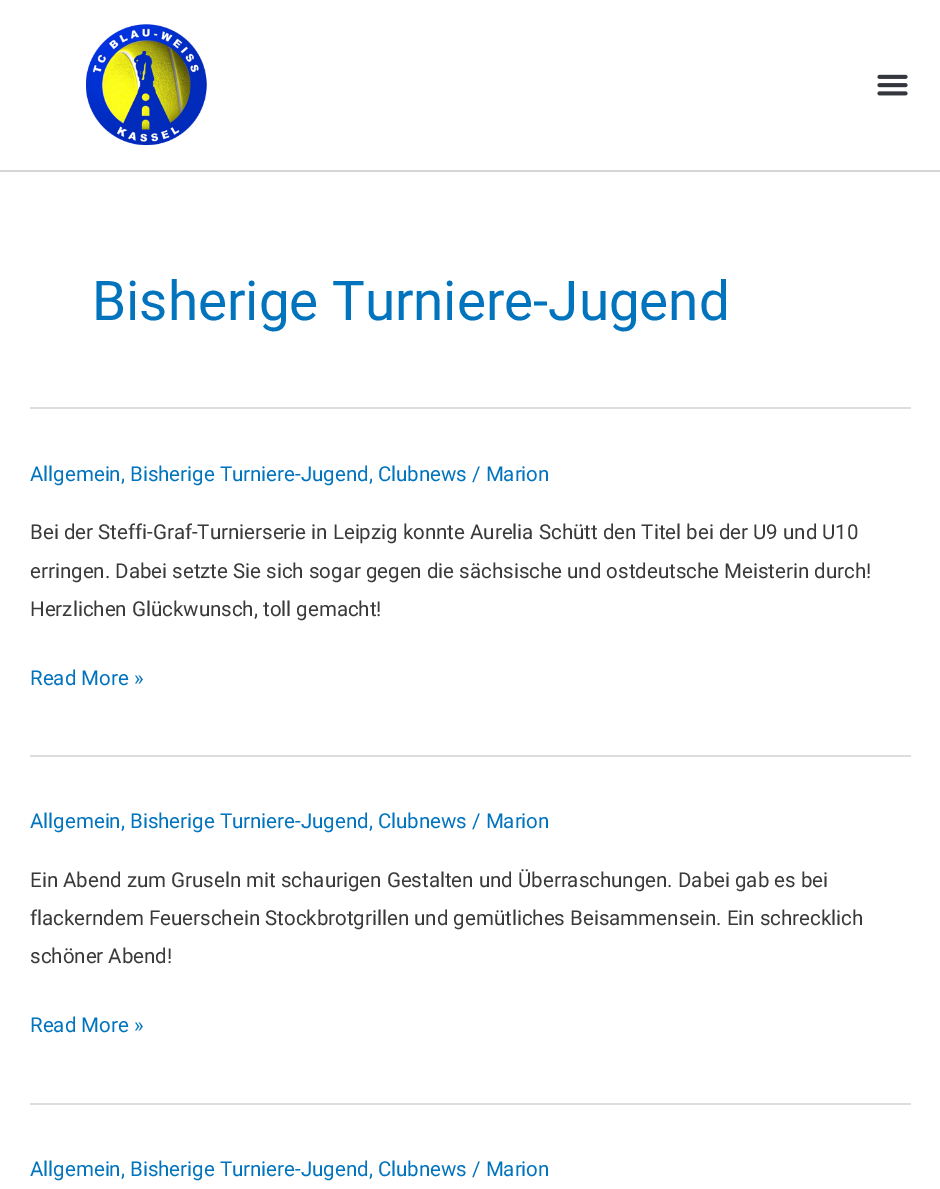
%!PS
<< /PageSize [940 1189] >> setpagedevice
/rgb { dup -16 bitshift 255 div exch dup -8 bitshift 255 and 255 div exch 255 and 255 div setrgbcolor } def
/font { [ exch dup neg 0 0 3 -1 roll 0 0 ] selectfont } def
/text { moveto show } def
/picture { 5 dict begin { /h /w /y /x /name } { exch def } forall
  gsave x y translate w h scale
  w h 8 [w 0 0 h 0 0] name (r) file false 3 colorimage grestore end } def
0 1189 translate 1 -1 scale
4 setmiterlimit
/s1 { /Roboto-Regular 54.75 font 16#0274BE rgb } def
/s2 { /Roboto-Regular 20.5 font 16#0274BE rgb } def
/s3 { /Roboto-Regular 20.5 font 16#3A3A3A rgb } def
16#FFFFFF rgb
0 0 940 1189 rectfill
16#D6D6D6 rgb
0 170 940 2 rectfill
(pic1.raw) 86 24 121 121 picture
(pic2.raw) 877 74 31 22 picture
16#DDDDDD rgb
30 407 881 2 rectfill
s1
(Bisherige Turniere-Jugend) 92 320 text
16#DDDDDD rgb
30 755 881 2 rectfill
s2
(Allgemein, Bisherige Turniere-Jugend, Clubnews / Marion) 30 481 text
s3
(Bei der Steffi-Graf-Turnierserie in Leipzig konnte Aurelia Schütt den Titel bei der U9 und U10) 30 539 text
(erringen. Dabei setzte Sie sich sogar gegen die sächsische und ostdeutsche Meisterin durch!) 30 578 text
(Herzlichen Glückwunsch, toll gemacht!) 30 616 text
s2
(Read More ») 30 685 text
16#DDDDDD rgb
30 1103 881 2 rectfill
s2
(Allgemein, Bisherige Turniere-Jugend, Clubnews / Marion) 30 828 text
s3
(Ein Abend zum Gruseln mit schaurigen Gestalten und Überraschungen. Dabei gab es bei) 30 887 text
(flackerndem Feuerschein Stockbrotgrillen und gemütliches Beisammensein. Ein schrecklich) 30 925 text
(schöner Abend!) 30 963 text
s2
(Read More ») 30 1032 text
(Allgemein, Bisherige Turniere-Jugend, Clubnews / Marion) 30 1176 text
showpage
